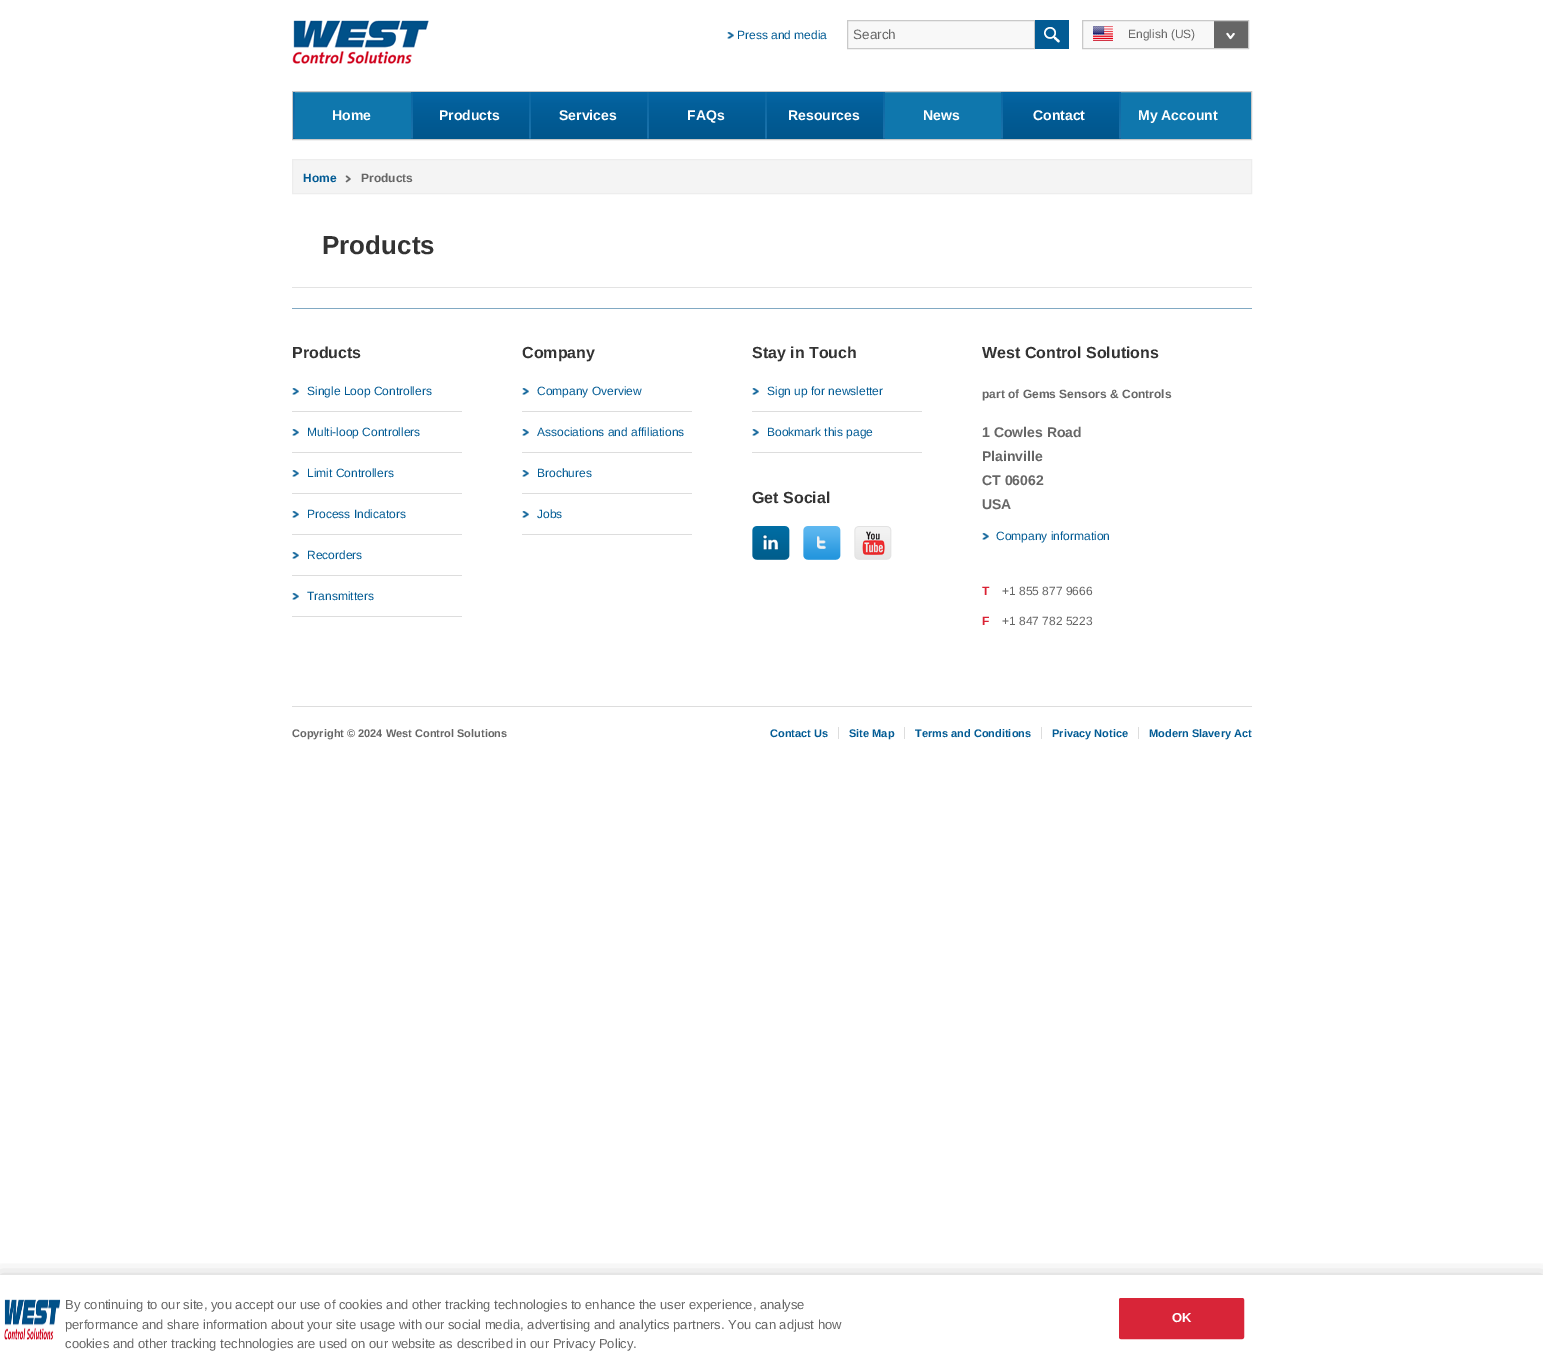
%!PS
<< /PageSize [1543 1364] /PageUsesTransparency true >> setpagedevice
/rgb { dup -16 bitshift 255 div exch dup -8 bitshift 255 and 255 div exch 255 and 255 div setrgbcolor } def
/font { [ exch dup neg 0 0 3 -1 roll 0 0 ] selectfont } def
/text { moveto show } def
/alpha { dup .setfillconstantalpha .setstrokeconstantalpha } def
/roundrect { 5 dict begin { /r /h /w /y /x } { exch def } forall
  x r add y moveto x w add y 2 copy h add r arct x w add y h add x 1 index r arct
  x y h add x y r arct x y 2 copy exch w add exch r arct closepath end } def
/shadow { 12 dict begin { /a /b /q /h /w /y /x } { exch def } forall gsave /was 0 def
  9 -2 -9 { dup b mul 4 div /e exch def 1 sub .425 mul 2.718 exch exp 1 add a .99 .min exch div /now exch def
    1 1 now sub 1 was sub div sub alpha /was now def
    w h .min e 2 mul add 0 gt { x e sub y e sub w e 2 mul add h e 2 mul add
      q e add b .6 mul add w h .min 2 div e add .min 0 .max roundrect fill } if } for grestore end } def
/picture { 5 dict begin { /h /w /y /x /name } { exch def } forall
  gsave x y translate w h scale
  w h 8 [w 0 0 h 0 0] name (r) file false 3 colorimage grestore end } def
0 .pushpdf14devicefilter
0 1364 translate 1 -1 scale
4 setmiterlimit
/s1 { /LiberationSans-Regular 12 font 16#025B94 rgb } def
/s2 { /LiberationSans-Regular 13.5 font 16#666666 rgb } def
/s3 { /LiberationSans-Regular 12 font 16#666666 rgb } def
/s4 { /LiberationSans-Bold 14 font 16#FFFFFF rgb } def
/s5 { /LiberationSans-Bold 12 font 16#025B94 rgb } def
/s6 { /LiberationSans-Bold 12 font 16#666666 rgb } def
/s7 { /LiberationSans-Bold 26 font 16#333333 rgb } def
/s8 { /LiberationSans-Bold 16 font 16#333333 rgb } def
/s9 { /LiberationSans-Bold 14 font 16#666666 rgb } def
/s10 { /LiberationSans-Bold 12 font 16#DA2133 rgb } def
/s11 { /LiberationSans-Bold 11 font 16#666666 rgb } def
/s12 { /LiberationSans-Bold 11 font 16#025B94 rgb } def
/s13 { /LiberationSans-Regular 13 font 16#666666 rgb } def
/s14 { /LiberationSans-Bold 13 font 16#FFFFFF rgb } def
16#FFFFFF rgb
0 0 1543 1364 rectfill
(pic1.raw) 292 20 137 44 picture
(pic2.raw) 727 32 7 7 picture
s1
(Press and media) 737 39 text
16#F8F8F8 rgb
847.5 20.5 moveto 1034.5 20.5 lineto 1034.5 48.5 lineto 847.5 48.5 lineto closepath gsave fill grestore
16#C9C9C9 rgb
stroke
s2
(Search) 853 39 text
(pic3.raw) 1035 20 34 29 picture
16#F8F8F8 rgb
1083 21 131 27 rectfill
(pic4.raw) 1214 21 34 27 picture
16#C9C9C9 rgb
1082.5 20.5 166 28 rectstroke
(pic5.raw) 1093 26 20 15 picture
s3
(English \(US\)) 1128 38 text
16#0F77AD rgb
295 92 956 47 rectfill
16#C9C9C9 rgb
292.5 91.5 959 48 rectstroke
(pic6.raw) 293 92 2 47 picture
s4
(Home) 332 120 text
(pic7.raw) 413 92 116 47 picture
(pic6.raw) 411 92 2 47 picture
(Products) 439 120 text
(pic7.raw) 531 92 116 47 picture
(pic6.raw) 529 92 2 47 picture
(Services) 559 120 text
(pic7.raw) 649 92 116 47 picture
(pic6.raw) 647 92 2 47 picture
(FAQs) 687 120 text
(pic7.raw) 767 92 116 47 picture
(pic6.raw) 765 92 2 47 picture
(Resources) 788 120 text
(pic6.raw) 883 92 2 47 picture
(News) 923 120 text
(pic7.raw) 1003 92 116 47 picture
(pic6.raw) 1001 92 2 47 picture
(Contact) 1033 120 text
(pic6.raw) 1119 92 2 47 picture
(My Account) 1138 120 text
16#F4F4F4 rgb
292.5 159.5 moveto 1251.5 159.5 lineto 1251.5 193.5 lineto 292.5 193.5 lineto closepath gsave fill grestore
16#EDEDED rgb
stroke
(pic8.raw) 345 175 6 8 picture
s5
(Home) 303 182 text
s6
(Products) 361 182 text
16#E3E3E3 rgb
292 287 960 1 rectfill
s7
(Products) 322 254 text
16#81A9C3 rgb
292 308 960 1 rectfill
s8
(Products) 292 358 text
(pic2.raw) 292 388 7 7 picture
16#DDDDDD rgb
292 411 170 1 rectfill
s1
(Single Loop Controllers) 307 395 text
(pic2.raw) 292 429 7 7 picture
16#DDDDDD rgb
292 452 170 1 rectfill
s1
(Multi-loop Controllers) 307 436 text
(pic2.raw) 292 470 7 7 picture
16#DDDDDD rgb
292 493 170 1 rectfill
s1
(Limit Controllers) 307 477 text
(pic2.raw) 292 511 7 7 picture
16#DDDDDD rgb
292 534 170 1 rectfill
s1
(Process Indicators) 307 518 text
(pic2.raw) 292 552 7 7 picture
16#DDDDDD rgb
292 575 170 1 rectfill
s1
(Recorders) 307 559 text
(pic2.raw) 292 593 7 7 picture
16#DDDDDD rgb
292 616 170 1 rectfill
s1
(Transmitters) 307 600 text
s8
(Company) 522 358 text
(pic9.raw) 522 388 7 7 picture
16#DDDDDD rgb
522 411 170 1 rectfill
s1
(Company Overview) 537 395 text
(pic9.raw) 522 429 7 7 picture
16#DDDDDD rgb
522 452 170 1 rectfill
s1
(Associations and affiliations) 537 436 text
(pic9.raw) 522 470 7 7 picture
16#DDDDDD rgb
522 493 170 1 rectfill
s1
(Brochures) 537 477 text
(pic9.raw) 522 511 7 7 picture
16#DDDDDD rgb
522 534 170 1 rectfill
s1
(Jobs) 537 518 text
s8
(Stay in Touch) 752 358 text
(pic9.raw) 752 388 7 7 picture
16#DDDDDD rgb
752 411 170 1 rectfill
s1
(Sign up for newsletter) 767 395 text
(pic9.raw) 752 429 7 7 picture
16#DDDDDD rgb
752 452 170 1 rectfill
s1
(Bookmark this page) 767 436 text
s8
(Get Social) 752 503 text
(pic10.raw) 752 526 38 34 picture
(pic11.raw) 803 526 38 34 picture
(pic12.raw) 854 526 38 34 picture
(West Control Solutions) 982 358 text
s6
(part of Gems Sensors & Controls) 982 398 text
s9
(1 Cowles Road) 982 437 text
(Plainville) 982 461 text
(CT 06062) 982 485 text
(USA) 982 509 text
(pic9.raw) 982 533 7 7 picture
s1
(Company information) 996 540 text
s10
(T) 982 595 text
s3
(+1 855 877 9666) 1002 595 text
s10
(F) 982 625 text
s3
(+1 847 782 5223) 1002 625 text
16#DDDDDD rgb
292 706 960 1 rectfill
s11
(Copyright © 2024 West Control Solutions) 292 737 text
16#DDDDDD rgb
838 727 1 12 rectfill
s12
(Contact Us) 770 737 text
16#DDDDDD rgb
904 727 1 12 rectfill
s12
(Site Map) 849 737 text
16#DDDDDD rgb
1041 727 1 12 rectfill
s12
(Terms and Conditions) 915 737 text
16#DDDDDD rgb
1138 727 1 12 rectfill
s12
(Privacy Notice) 1052 737 text
(Modern Slavery Act) 1149 737 text
gsave
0 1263 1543 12 rectclip
16#000000 rgb
0 1275 1543 89 0 9 0.2 shadow
grestore
(pic13.raw) 4 1299 57 41 picture
s13
(By continuing to our site, you accept our use of cookies and other tracking technologies to enhance the user experience, analyse) 65 1309 text
(performance and share information about your site usage with our social media, advertising and analytics partners. You can adjust how) 65 1329 text
(cookies and other tracking technologies are used on our website as described in our Privacy Policy.) 65 1348 text
16#D82538 rgb
1119.5 1298.5 124 40 1.5 roundrect gsave fill grestore
stroke
s14
(OK) 1172 1322 text
.poppdf14devicefilter showpage
